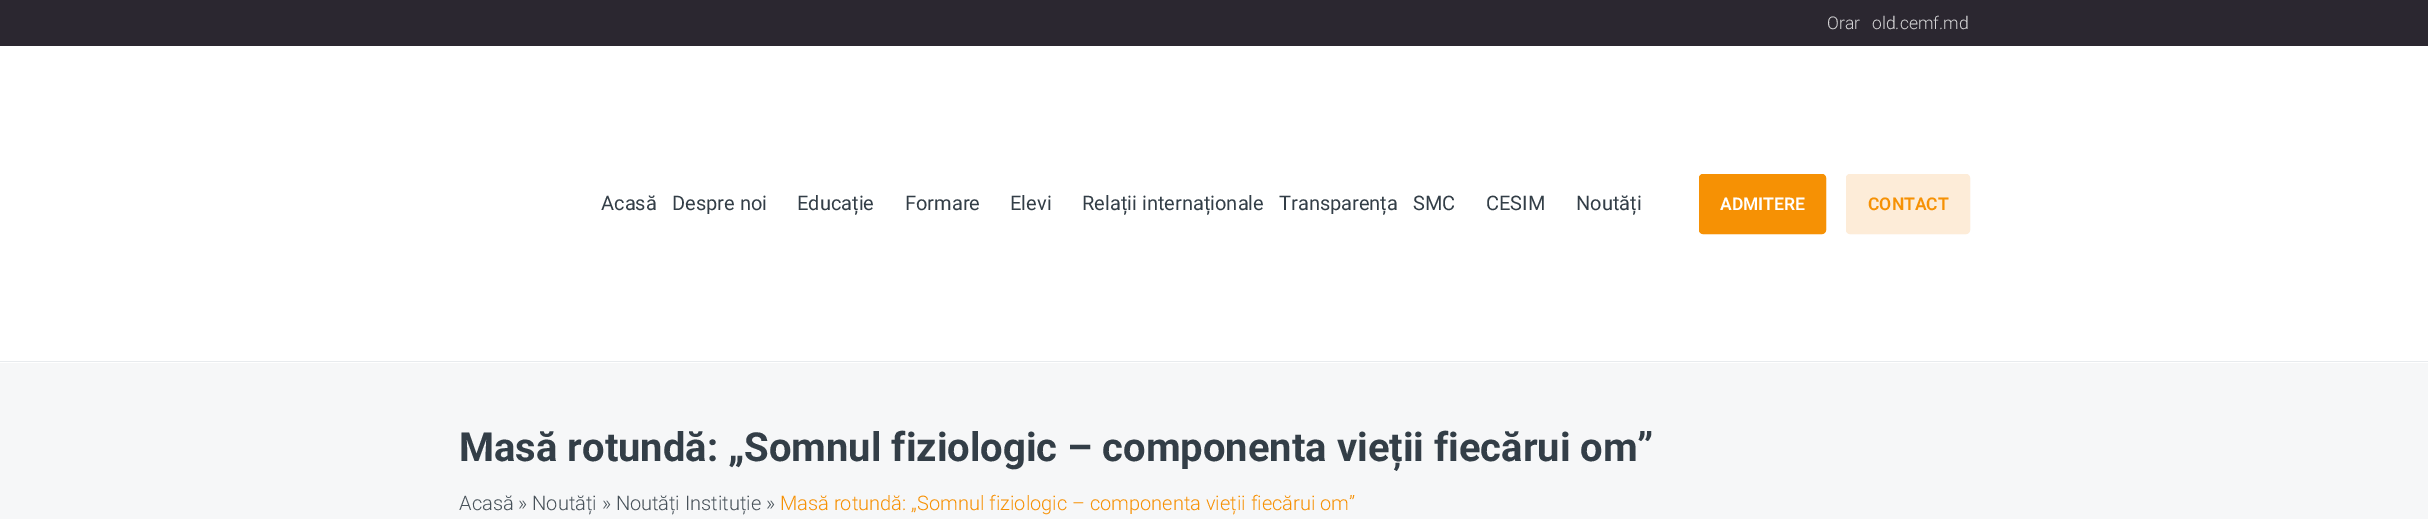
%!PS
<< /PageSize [2428 519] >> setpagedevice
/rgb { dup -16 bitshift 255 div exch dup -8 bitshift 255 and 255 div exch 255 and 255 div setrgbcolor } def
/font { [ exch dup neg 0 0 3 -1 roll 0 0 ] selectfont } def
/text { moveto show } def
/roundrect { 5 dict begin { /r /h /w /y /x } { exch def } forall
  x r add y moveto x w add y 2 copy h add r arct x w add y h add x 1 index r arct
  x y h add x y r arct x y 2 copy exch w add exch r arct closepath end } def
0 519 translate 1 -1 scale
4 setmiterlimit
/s1 { /Roboto-Light 17.5 font 16#D5D4D6 rgb } def
/s2 { /Roboto-Regular 20 font 16#333E47 rgb } def
/s3 { /Roboto-SemiBold 17.5 font 16#FFFFFF rgb } def
/s4 { /Roboto-SemiBold 17.5 font 16#F69104 rgb } def
/s5 { /Roboto-Bold 40 font 16#333E47 rgb } def
/s6 { /Roboto-Light 20 font 16#475159 rgb } def
/s7 { /Roboto-Light 20 font 16#F69104 rgb } def
16#FFFFFF rgb
0 0 2428 519 rectfill
16#E8EBEE rgb
0 361 2428 1 rectfill
16#2B2730 rgb
0 0 2428 46 rectfill
s1
(Orar) 1827 29 text
(old.cemf.md) 1872 29 text
s2
(Acasă) 601 210 text
(Despre noi) 672 210 text
(Educație) 797 210 text
(Formare) 905 210 text
(Elevi) 1010 210 text
(Relații internaționale) 1082 210 text
(Transparența) 1279 210 text
(SMC) 1413 210 text
(CESIM) 1486 210 text
(Noutăți) 1576 210 text
16#F69104 rgb
1699.5 174.5 126 59 3.5 roundrect gsave fill grestore
stroke
s3
(ADMITERE) 1720 210 text
16#FDECD8 rgb
1846.5 174.5 123 59 3.5 roundrect gsave fill grestore
stroke
s4
(CONTACT) 1868 210 text
16#F6F7F8 rgb
0 363 2428 156 rectfill
s5
(Masă rotundă: „Somnul fiziologic – componenta vieții fiecărui om”) 459 461 text
s6
(Acasă » Noutăți » Noutăți Instituție ») 459 510 text
s7
(Masă rotundă: „Somnul fiziologic – componenta vieții fiecărui om”) 780 510 text
showpage
